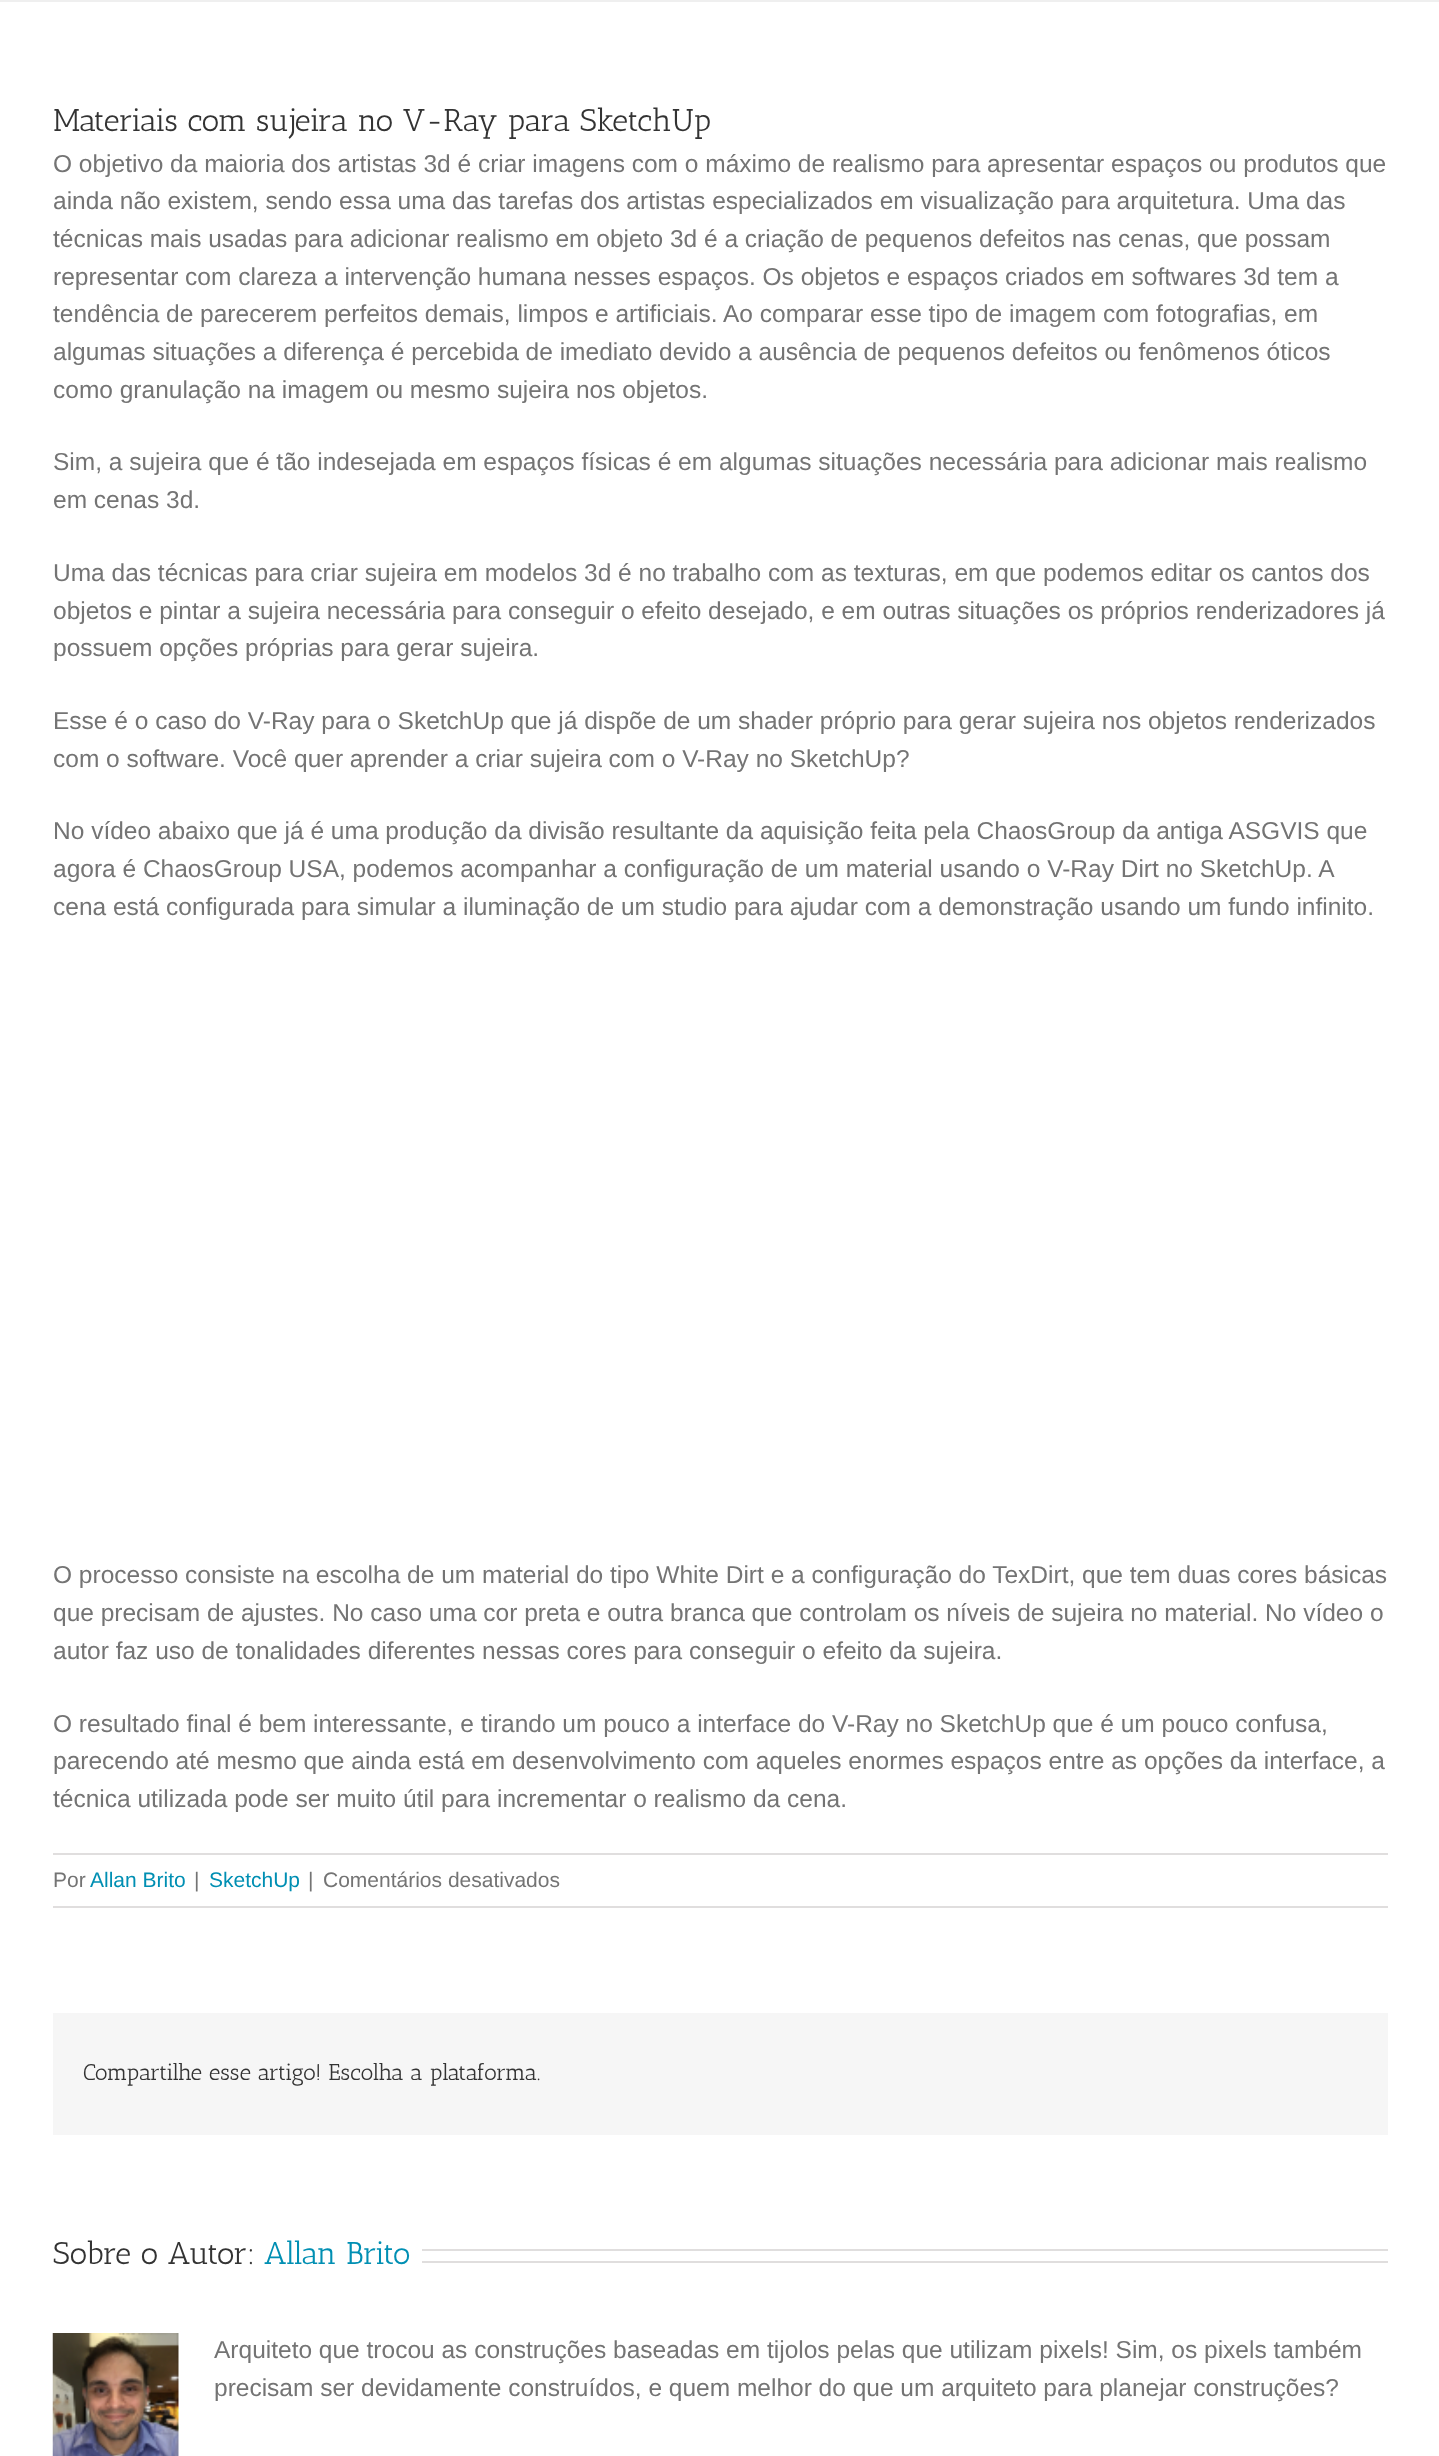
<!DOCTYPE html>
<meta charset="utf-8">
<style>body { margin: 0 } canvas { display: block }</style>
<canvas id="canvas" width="1439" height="2456"></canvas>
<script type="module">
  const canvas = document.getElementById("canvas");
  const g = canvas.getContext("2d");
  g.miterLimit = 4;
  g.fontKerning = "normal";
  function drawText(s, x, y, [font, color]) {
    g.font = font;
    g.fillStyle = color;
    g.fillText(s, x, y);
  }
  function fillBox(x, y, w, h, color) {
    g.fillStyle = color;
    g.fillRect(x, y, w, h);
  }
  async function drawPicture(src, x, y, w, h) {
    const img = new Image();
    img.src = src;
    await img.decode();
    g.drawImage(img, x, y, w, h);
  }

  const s1 = ["31.5px Antic Slab", "#333333"];
  const s2 = ["24.5px Liberation Sans", "#747474"];
  const s3 = ["21px Liberation Sans", "#747474"];
  const s4 = ["21px Liberation Sans", "#008FB3"];
  const s5 = ["22.75px Antic Slab", "#333333"];
  const s6 = ["31.5px Antic Slab", "#008FB3"];

  fillBox(0, 0, 1439, 2456, "#FFFFFF");
  fillBox(0, 0, 1439, 2, "#EFEFEF");
  drawText("Materiais com sujeira no V-Ray para SketchUp", 53, 131, s1);
  drawText("O objetivo da maioria dos artistas 3d é criar imagens com o máximo de realismo para apresentar espaços ou produtos que", 53, 172, s2);
  drawText("ainda não existem, sendo essa uma das tarefas dos artistas especializados em visualização para arquitetura. Uma das", 53, 209, s2);
  drawText("técnicas mais usadas para adicionar realismo em objeto 3d é a criação de pequenos defeitos nas cenas, que possam", 53, 247, s2);
  drawText("representar com clareza a intervenção humana nesses espaços. Os objetos e espaços criados em softwares 3d tem a", 53, 285, s2);
  drawText("tendência de parecerem perfeitos demais, limpos e artificiais. Ao comparar esse tipo de imagem com fotografias, em", 53, 322, s2);
  drawText("algumas situações a diferença é percebida de imediato devido a ausência de pequenos defeitos ou fenômenos óticos", 53, 360, s2);
  drawText("como granulação na imagem ou mesmo sujeira nos objetos.", 53, 398, s2);
  drawText("Sim, a sujeira que é tão indesejada em espaços físicas é em algumas situações necessária para adicionar mais realismo", 53, 470, s2);
  drawText("em cenas 3d.", 53, 508, s2);
  drawText("Uma das técnicas para criar sujeira em modelos 3d é no trabalho com as texturas, em que podemos editar os cantos dos", 53, 581, s2);
  drawText("objetos e pintar a sujeira necessária para conseguir o efeito desejado, e em outras situações os próprios renderizadores já", 53, 619, s2);
  drawText("possuem opções próprias para gerar sujeira.", 53, 656, s2);
  drawText("Esse é o caso do V-Ray para o SketchUp que já dispõe de um shader próprio para gerar sujeira nos objetos renderizados", 53, 729, s2);
  drawText("com o software. Você quer aprender a criar sujeira com o V-Ray no SketchUp?", 53, 767, s2);
  drawText("No vídeo abaixo que já é uma produção da divisão resultante da aquisição feita pela ChaosGroup da antiga ASGVIS que", 53, 839, s2);
  drawText("agora é ChaosGroup USA, podemos acompanhar a configuração de um material usando o V-Ray Dirt no SketchUp. A", 53, 877, s2);
  drawText("cena está configurada para simular a iluminação de um studio para ajudar com a demonstração usando um fundo infinito.", 53, 915, s2);
  drawText("O processo consiste na escolha de um material do tipo White Dirt e a configuração do TexDirt, que tem duas cores básicas", 53, 1583, s2);
  drawText("que precisam de ajustes. No caso uma cor preta e outra branca que controlam os níveis de sujeira no material. No vídeo o", 53, 1621, s2);
  drawText("autor faz uso de tonalidades diferentes nessas cores para conseguir o efeito da sujeira.", 53, 1659, s2);
  drawText("O resultado final é bem interessante, e tirando um pouco a interface do V-Ray no SketchUp que é um pouco confusa,", 53, 1732, s2);
  drawText("parecendo até mesmo que ainda está em desenvolvimento com aqueles enormes espaços entre as opções da interface, a", 53, 1769, s2);
  drawText("técnica utilizada pode ser muito útil para incrementar o realismo da cena.", 53, 1807, s2);
  fillBox(53, 1853, 1335, 2, "#E0DEDE");
  fillBox(53, 1906, 1335, 2, "#E0DEDE");
  drawText("Por", 53, 1887, s3);
  drawText("Allan Brito", 90, 1887, s4);
  drawText("|", 194, 1887, s3);
  drawText("SketchUp", 209, 1887, s4);
  drawText("|", 308, 1887, s3);
  drawText("Comentários desativados", 323, 1887, s3);
  fillBox(53, 2013, 1335, 122, "#F6F6F6");
  drawText("Compartilhe esse artigo! Escolha a plataforma.", 83, 2080, s5);
  drawText("Sobre o Autor:", 53, 2264, s1);
  drawText("Allan Brito", 264, 2264, s6);
  fillBox(422, 2249, 966, 2, "#E0DEDE");
  fillBox(422, 2261, 966, 2, "#E0DEDE");
  await drawPicture("pic1.png", 52, 2333, 127, 123);
  drawText("Arquiteto que trocou as construções baseadas em tijolos pelas que utilizam pixels! Sim, os pixels também", 214, 2358, s2);
  drawText("precisam ser devidamente construídos, e quem melhor do que um arquiteto para planejar construções?", 214, 2396, s2);
</script>
